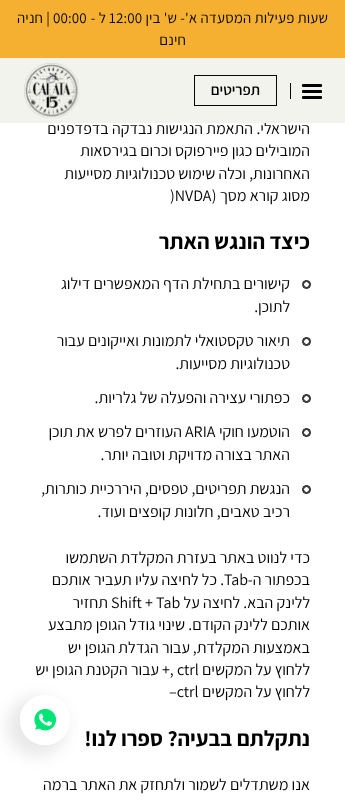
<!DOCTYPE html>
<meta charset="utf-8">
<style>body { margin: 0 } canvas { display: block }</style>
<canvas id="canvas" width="345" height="805"></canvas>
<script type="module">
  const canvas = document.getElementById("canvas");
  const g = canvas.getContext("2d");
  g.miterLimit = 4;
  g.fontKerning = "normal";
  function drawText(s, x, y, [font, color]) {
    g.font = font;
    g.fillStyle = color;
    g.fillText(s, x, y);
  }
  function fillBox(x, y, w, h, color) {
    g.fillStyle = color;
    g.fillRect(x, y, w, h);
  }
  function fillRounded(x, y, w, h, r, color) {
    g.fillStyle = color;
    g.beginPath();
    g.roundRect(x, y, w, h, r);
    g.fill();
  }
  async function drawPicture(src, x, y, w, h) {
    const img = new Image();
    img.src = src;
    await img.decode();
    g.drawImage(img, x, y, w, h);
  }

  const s1 = ["15px Assistant", "#070707"];
  const s2 = ["16px Assistant", "#000000"];
  const s3 = ["600 15px Assistant", "#000000"];
  const s4 = ["bold 22px Assistant", "#000000"];

  fillBox(0, 0, 345, 805, "#FFFFFF");
  fillBox(0, 0, 345, 58, "#F5B031");
  g.letterSpacing = "0.15px";
  g.direction = "rtl";
  drawText("שעות פעילות המסעדה א'- ש' בין", 328, 23, s1);
  g.direction = "ltr";
  drawText("12:00", 109, 23, s1);
  g.direction = "rtl";
  drawText("ל -", 106, 23, s1);
  g.direction = "ltr";
  drawText("00:00", 53, 23, s1);
  g.direction = "rtl";
  drawText("| חניה", 50, 23, s1);
  drawText("חינם", 186, 45, s1);
  g.letterSpacing = "0px";
  drawText("הישראלי.", 310, 134, s2);
  fillBox(0, 58, 345, 65, "#F3F3EE");
  fillRounded(302, 90, 20, 3, 1, "#000000");
  fillRounded(302, 84, 20, 3, 1, "#000000");
  fillRounded(302, 96, 20, 3, 1, "#000000");
  fillBox(290, 83, 1, 16, "#070707");
  g.strokeStyle = "#070707";
  g.strokeRect(194.5, 75.5, 82, 30);
  drawText("תפריטים", 260, 95, s3);
  await drawPicture("pic1.png", 24, 63, 55, 55);
  drawText("התאמת הנגישות נבדקה בדפדפנים", 253, 134, s2);
  drawText("המובילים כגון פיירפוקס וכרום בגירסאות", 310, 156, s2);
  drawText("האחרונות, וכלה שימוש טכנולוגיות מסייעות", 310, 179, s2);
  drawText("מסוג קורא מסך (", 310, 201, s2);
  g.direction = "ltr";
  drawText(")NVDA", 170, 201, s2);
  g.direction = "rtl";
  drawText("כיצד הונגש האתר", 310, 249, s4);
  g.beginPath();
  g.arc(306.5, 284.5, 3, 0, Math.PI * 2);
  g.strokeStyle = "#000000";
  g.stroke();
  g.beginPath();
  g.arc(306.5, 284.5, 4, 0, Math.PI * 2);
  g.stroke();
  drawText("קישורים בתחילת הדף המאפשרים דילוג", 290, 289, s2);
  drawText("לתוכן.", 290, 312, s2);
  g.beginPath();
  g.arc(306.5, 341.5, 3, 0, Math.PI * 2);
  g.stroke();
  g.beginPath();
  g.arc(306.5, 341.5, 4, 0, Math.PI * 2);
  g.stroke();
  drawText("תיאור טקסטואלי לתמונות ואייקונים עבור", 290, 346, s2);
  drawText("טכנולוגיות מסייעות.", 290, 369, s2);
  g.beginPath();
  g.arc(306.5, 398.5, 3, 0, Math.PI * 2);
  g.stroke();
  g.beginPath();
  g.arc(306.5, 398.5, 4, 0, Math.PI * 2);
  g.stroke();
  drawText("כפתורי עצירה והפעלה של גלריות.", 290, 403, s2);
  g.beginPath();
  g.arc(306.5, 432.5, 3, 0, Math.PI * 2);
  g.stroke();
  g.beginPath();
  g.arc(306.5, 432.5, 4, 0, Math.PI * 2);
  g.stroke();
  drawText("הוטמעו חוקי", 290, 437, s2);
  g.direction = "ltr";
  drawText("ARIA", 185, 437, s2);
  g.direction = "rtl";
  drawText("העוזרים לפרש את תוכן", 182, 437, s2);
  drawText("האתר בצורה מדויקת וטובה יותר.", 290, 460, s2);
  g.beginPath();
  g.arc(306.5, 489.5, 3, 0, Math.PI * 2);
  g.stroke();
  g.beginPath();
  g.arc(306.5, 489.5, 4, 0, Math.PI * 2);
  g.stroke();
  drawText("הנגשת תפריטים, טפסים, היררכיית כותרות,", 290, 494, s2);
  drawText("רכיב טאבים, חלונות קופצים ועוד.", 290, 517, s2);
  drawText("כדי לנווט באתר בעזרת המקלדת השתמשו", 310, 563, s2);
  drawText("בכפתור ה-", 310, 585, s2);
  g.direction = "ltr";
  drawText("Tab", 224, 585, s2);
  g.direction = "rtl";
  drawText(". כל לחיצה עליו תעביר אותכם", 224, 585, s2);
  drawText("ללינק הבא. לחיצה על", 310, 608, s2);
  g.direction = "ltr";
  drawText("Shift + Tab", 111, 608, s2);
  g.direction = "rtl";
  drawText("תחזיר", 108, 608, s2);
  drawText("אותכם ללינק הקודם.", 310, 630, s2);
  drawText("שינוי גודל הגופן מתבצע", 185, 630, s2);
  drawText("באמצעות המקלדת,", 310, 653, s2);
  drawText("עבור הגדלת הגופן יש", 190, 653, s2);
  drawText("ללחוץ על המקשים", 310, 675, s2);
  g.direction = "ltr";
  drawText("+, ctrl", 162, 675, s2);
  g.direction = "rtl";
  drawText("עבור הקטנת הגופן יש", 159, 675, s2);
  drawText("ללחוץ על המקשים", 310, 697, s2);
  g.direction = "ltr";
  drawText("–ctrl", 169, 697, s2);
  g.direction = "rtl";
  drawText("נתקלתם בבעיה? ספרו לנו!", 310, 746, s4);
  drawText("אנו משתדלים לשמור ולתחזק את האתר ברמה", 310, 790, s2);
  g.save();
  g.beginPath();
  g.moveTo(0, 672);
  g.lineTo(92, 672);
  g.lineTo(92, 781);
  g.lineTo(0, 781);
  g.closePath();
  g.moveTo(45, 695);
  g.bezierCurveTo(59, 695, 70, 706, 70, 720);
  g.bezierCurveTo(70, 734, 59, 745, 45, 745);
  g.bezierCurveTo(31, 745, 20, 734, 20, 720);
  g.bezierCurveTo(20, 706, 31, 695, 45, 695);
  g.closePath();
  g.clip("evenodd");
  g.fillStyle = "rgba(0, 0, 0, 0.09)";
  g.filter = "blur(8px)";
  g.beginPath();
  g.roundRect(7, 697, 60, 59, 29.5);
  g.fill();
  g.filter = "none";
  g.restore();
  await drawPicture("pic2.png", 20, 705, 36, 40);
</script>
